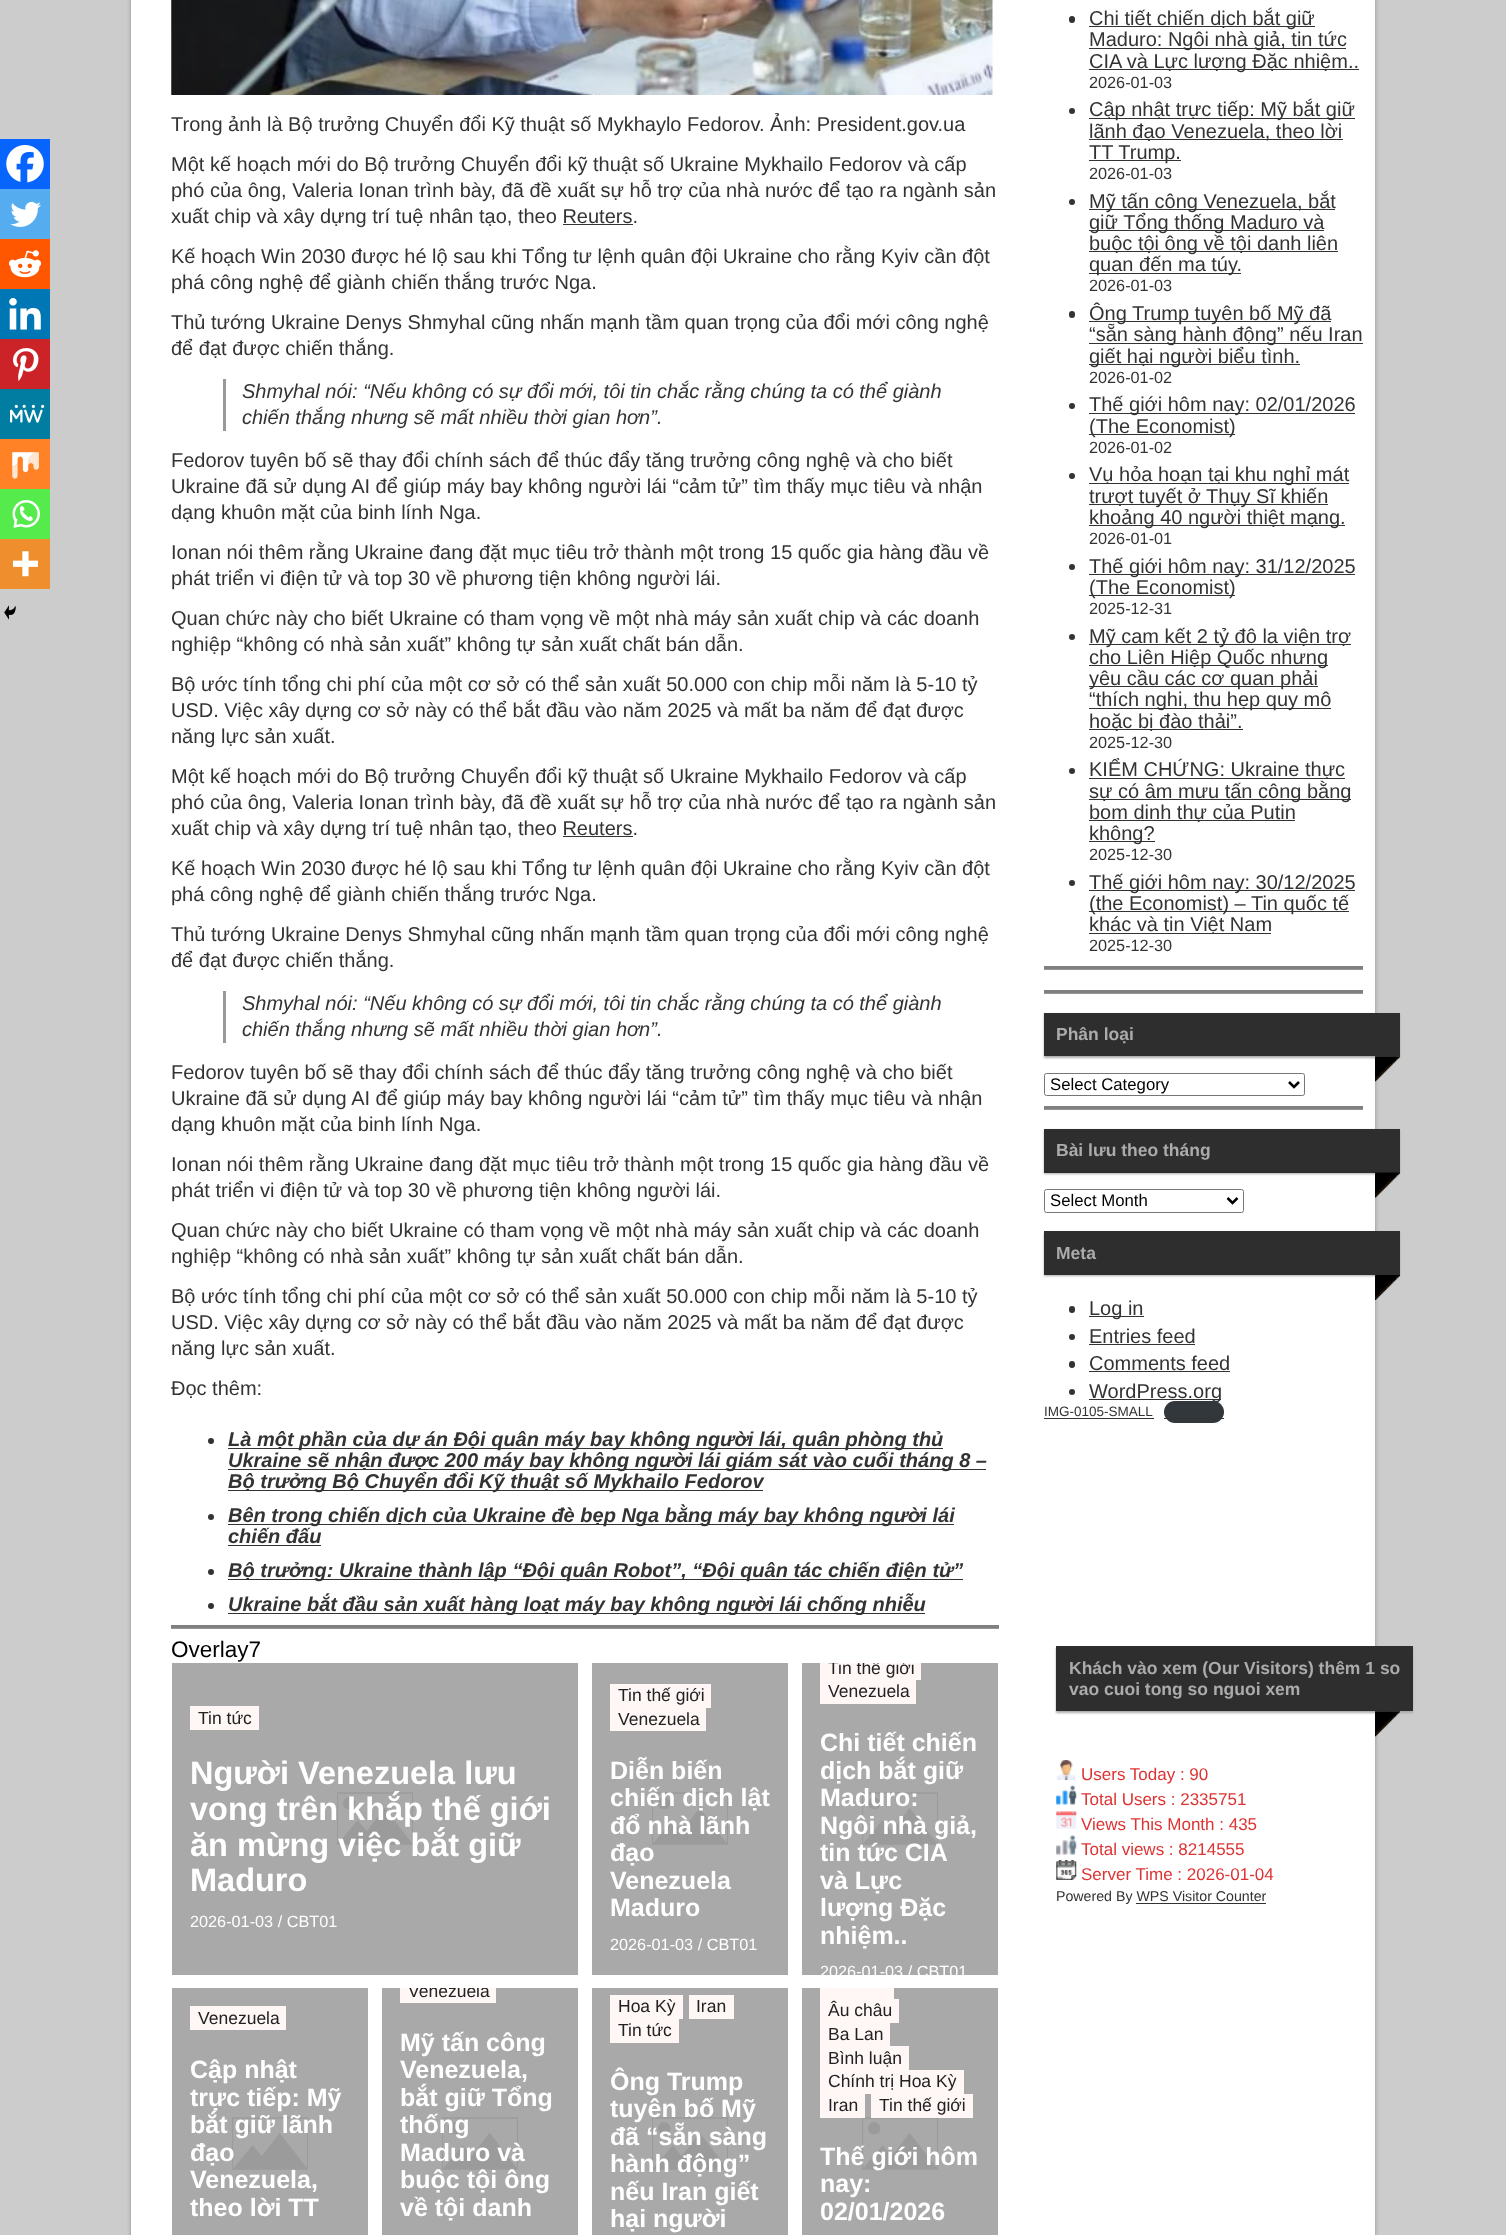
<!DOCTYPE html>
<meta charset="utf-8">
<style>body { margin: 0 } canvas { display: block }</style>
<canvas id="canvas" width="1506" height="2235"></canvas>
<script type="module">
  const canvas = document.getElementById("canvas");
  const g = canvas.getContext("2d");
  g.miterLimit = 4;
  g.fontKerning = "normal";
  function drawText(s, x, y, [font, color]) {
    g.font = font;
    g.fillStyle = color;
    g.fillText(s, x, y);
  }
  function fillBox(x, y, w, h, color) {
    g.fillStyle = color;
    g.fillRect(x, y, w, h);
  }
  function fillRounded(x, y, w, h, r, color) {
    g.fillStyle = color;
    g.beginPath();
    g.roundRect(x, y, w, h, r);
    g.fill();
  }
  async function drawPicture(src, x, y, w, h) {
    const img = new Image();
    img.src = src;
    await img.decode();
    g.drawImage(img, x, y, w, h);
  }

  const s1 = ["20px Liberation Sans", "#333333"];
  const s2 = ["italic 20px Liberation Sans", "#333333"];
  const s3 = ["italic bold 20px Liberation Sans", "#333333"];
  const s4 = ["22.5px Liberation Sans", "#000000"];
  const s5 = ["17.5px Liberation Sans", "#222222"];
  const s6 = ["bold 32.5px Liberation Sans", "#FFFFFF"];
  const s7 = ["16.25px Liberation Sans", "#FFFFFF"];
  const s8 = ["bold 25px Liberation Sans", "#FFFFFF"];
  const s9 = ["16.25px Liberation Sans", "#333333"];
  const s10 = ["bold 17.5px Liberation Sans", "#ABABAB"];
  const s11 = ["16.75px Liberation Sans", "#000000"];
  const s12 = ["13.5px Liberation Sans", "#333333"];
  const s13 = ["17px Liberation Sans", "#DD3333"];
  const s14 = ["14.2px Liberation Sans", "#333333"];

  fillBox(0, 0, 1506, 2235, "#CCCCCC");
  g.fillStyle = "rgba(0, 0, 0, 0.3)";
  g.filter = "blur(2px)";
  g.beginPath();
  g.roundRect(131, -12, 1244, 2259, 6);
  g.fill();
  g.filter = "none";
  fillBox(131, 0, 1244, 2235, "#FFFFFF");
  await drawPicture("pic1.png", 171, 0, 822, 95);
  drawText("Trong ảnh là Bộ trưởng Chuyển đổi Kỹ thuật số Mykhaylo Fedorov. Ảnh: President.gov.ua", 171, 131, s1);
  fillBox(0, 139, 50, 50, "#0765FE");
  await drawPicture("pic2.png", 6, 145, 38, 38);
  fillBox(0, 189, 50, 50, "#55ACEE");
  await drawPicture("pic3.png", 10, 201, 31, 26);
  fillBox(0, 239, 50, 50, "#FF5700");
  await drawPicture("pic4.png", 8, 250, 34, 28);
  fillBox(0, 289, 50, 50, "#0077B5");
  await drawPicture("pic5.png", 9, 298, 32, 32);
  fillBox(0, 339, 50, 50, "#CC2329");
  await drawPicture("pic6.png", 13, 348, 26, 33);
  fillBox(0, 389, 50, 50, "#007DA1");
  await drawPicture("pic7.png", 10, 404, 35, 19);
  fillBox(0, 439, 50, 50, "#FF8226");
  await drawPicture("pic8.png", 12, 452, 27, 27);
  fillBox(0, 489, 50, 50, "#55EB4C");
  await drawPicture("pic9.png", 12, 500, 28, 28);
  fillBox(0, 539, 50, 50, "#EE8E2D");
  await drawPicture("pic10.png", 12, 551, 26, 26);
  await drawPicture("pic11.png", 4, 605, 12, 15);
  drawText("Một kế hoạch mới do Bộ trưởng Chuyển đổi kỹ thuật số Ukraine Mykhailo Fedorov và cấp", 171, 171, s1);
  drawText("phó của ông, Valeria Ionan trình bày, đã đề xuất sự hỗ trợ của nhà nước để tạo ra ngành sản", 171, 197, s1);
  drawText("xuất chip và xây dựng trí tuệ nhân tạo, theo Reuters.", 171, 223, s1);
  fillBox(563, 224, 70, 1, "#333333");
  drawText("Kế hoạch Win 2030 được hé lộ sau khi Tổng tư lệnh quân đội Ukraine cho rằng Kyiv cần đột", 171, 263, s1);
  drawText("phá công nghệ để giành chiến thắng trước Nga.", 171, 289, s1);
  drawText("Thủ tướng Ukraine Denys Shmyhal cũng nhấn mạnh tầm quan trọng của đổi mới công nghệ", 171, 329, s1);
  drawText("để đạt được chiến thắng.", 171, 355, s1);
  fillBox(223, 379, 3, 52, "#999999");
  drawText("Shmyhal nói: “Nếu không có sự đổi mới, tôi tin chắc rằng chúng ta có thể giành", 242, 398, s2);
  drawText("chiến thắng nhưng sẽ mất nhiều thời gian hơn”.", 242, 424, s2);
  drawText("Fedorov tuyên bố sẽ thay đổi chính sách để thúc đẩy tăng trưởng công nghệ và cho biết", 171, 467, s1);
  drawText("Ukraine đã sử dụng AI để giúp máy bay không người lái “cảm tử” tìm thấy mục tiêu và nhận", 171, 493, s1);
  drawText("dạng khuôn mặt của binh lính Nga.", 171, 519, s1);
  drawText("Ionan nói thêm rằng Ukraine đang đặt mục tiêu trở thành một trong 15 quốc gia hàng đầu về", 171, 559, s1);
  drawText("phát triển vi điện tử và top 30 về phương tiện không người lái.", 171, 585, s1);
  drawText("Quan chức này cho biết Ukraine có tham vọng về một nhà máy sản xuất chip và các doanh", 171, 625, s1);
  drawText("nghiệp “không có nhà sản xuất” không tự sản xuất chất bán dẫn.", 171, 651, s1);
  drawText("Bộ ước tính tổng chi phí của một cơ sở có thể sản xuất 50.000 con chip mỗi năm là 5-10 tỷ", 171, 691, s1);
  drawText("USD. Việc xây dựng cơ sở này có thể bắt đầu vào năm 2025 và mất ba năm để đạt được", 171, 717, s1);
  drawText("năng lực sản xuất.", 171, 743, s1);
  drawText("Một kế hoạch mới do Bộ trưởng Chuyển đổi kỹ thuật số Ukraine Mykhailo Fedorov và cấp", 171, 783, s1);
  drawText("phó của ông, Valeria Ionan trình bày, đã đề xuất sự hỗ trợ của nhà nước để tạo ra ngành sản", 171, 809, s1);
  drawText("xuất chip và xây dựng trí tuệ nhân tạo, theo Reuters.", 171, 835, s1);
  fillBox(563, 836, 70, 1, "#333333");
  drawText("Kế hoạch Win 2030 được hé lộ sau khi Tổng tư lệnh quân đội Ukraine cho rằng Kyiv cần đột", 171, 875, s1);
  drawText("phá công nghệ để giành chiến thắng trước Nga.", 171, 901, s1);
  drawText("Thủ tướng Ukraine Denys Shmyhal cũng nhấn mạnh tầm quan trọng của đổi mới công nghệ", 171, 941, s1);
  drawText("để đạt được chiến thắng.", 171, 967, s1);
  fillBox(223, 991, 3, 52, "#999999");
  drawText("Shmyhal nói: “Nếu không có sự đổi mới, tôi tin chắc rằng chúng ta có thể giành", 242, 1010, s2);
  drawText("chiến thắng nhưng sẽ mất nhiều thời gian hơn”.", 242, 1036, s2);
  drawText("Fedorov tuyên bố sẽ thay đổi chính sách để thúc đẩy tăng trưởng công nghệ và cho biết", 171, 1079, s1);
  drawText("Ukraine đã sử dụng AI để giúp máy bay không người lái “cảm tử” tìm thấy mục tiêu và nhận", 171, 1105, s1);
  drawText("dạng khuôn mặt của binh lính Nga.", 171, 1131, s1);
  drawText("Ionan nói thêm rằng Ukraine đang đặt mục tiêu trở thành một trong 15 quốc gia hàng đầu về", 171, 1171, s1);
  drawText("phát triển vi điện tử và top 30 về phương tiện không người lái.", 171, 1197, s1);
  drawText("Quan chức này cho biết Ukraine có tham vọng về một nhà máy sản xuất chip và các doanh", 171, 1237, s1);
  drawText("nghiệp “không có nhà sản xuất” không tự sản xuất chất bán dẫn.", 171, 1263, s1);
  drawText("Bộ ước tính tổng chi phí của một cơ sở có thể sản xuất 50.000 con chip mỗi năm là 5-10 tỷ", 171, 1303, s1);
  drawText("USD. Việc xây dựng cơ sở này có thể bắt đầu vào năm 2025 và mất ba năm để đạt được", 171, 1329, s1);
  drawText("năng lực sản xuất.", 171, 1355, s1);
  drawText("Đọc thêm:", 171, 1395, s1);
  g.beginPath();
  g.arc(211, 1441, 3, 0, Math.PI * 2);
  g.fill();
  fillBox(228, 1448, 715, 1, "#333333");
  drawText("Là một phần của dự án Đội quân máy bay không người lái, quân phòng thủ", 228, 1446, s3);
  fillBox(228, 1469, 758, 1, "#333333");
  drawText("Ukraine sẽ nhận được 200 máy bay không người lái giám sát vào cuối tháng 8 –", 228, 1467, s3);
  fillBox(228, 1490, 535, 1, "#333333");
  drawText("Bộ trưởng Bộ Chuyển đổi Kỹ thuật số Mykhailo Fedorov", 228, 1488, s3);
  g.beginPath();
  g.arc(211, 1517, 3, 0, Math.PI * 2);
  g.fill();
  fillBox(228, 1524, 726, 1, "#333333");
  drawText("Bên trong chiến dịch của Ukraine đè bẹp Nga bằng máy bay không người lái", 228, 1522, s3);
  drawText("chiến đấu", 228, 1543, s3);
  fillBox(228, 1545, 93, 1, "#333333");
  g.beginPath();
  g.arc(211, 1572, 3, 0, Math.PI * 2);
  g.fill();
  fillBox(228, 1579, 735, 1, "#333333");
  drawText("Bộ trưởng: Ukraine thành lập “Đội quân Robot”, “Đội quân tác chiến điện tử”", 228, 1577, s3);
  g.beginPath();
  g.arc(211, 1606, 3, 0, Math.PI * 2);
  g.fill();
  fillBox(228, 1613, 697, 1, "#333333");
  g.save();
  g.beginPath();
  g.rect(171, 1416, 828, 199);
  g.clip();
  drawText("Ukraine bắt đầu sản xuất hàng loạt máy bay không người lái chống nhiễu", 228, 1611, s3);
  g.restore();
  fillBox(171, 1628, 828, 1, "#969696");
  fillBox(171, 1625, 828, 3, "#808080");
  drawText("Overlay7", 171, 1657, s4);
  await drawPicture("pic12.png", 172, 1663, 406, 312);
  fillBox(190, 1706, 69, 24, "#FFF6F6");
  drawText("Tin tức", 198, 1724, s5);
  drawText("Người Venezuela lưu", 190, 1784, s6);
  drawText("vong trên khắp thế giới", 190, 1820, s6);
  drawText("ăn mừng việc bắt giữ", 190, 1856, s6);
  drawText("Maduro", 190, 1891, s6);
  drawText("2026-01-03 / CBT01", 190, 1927, s7);
  await drawPicture("pic13.png", 592, 1663, 196, 312);
  fillBox(610, 1684, 101, 24, "#FFF6F6");
  drawText("Tin thế giới", 618, 1701, s5);
  fillBox(610, 1708, 96, 23, "#FFF6F6");
  drawText("Venezuela", 618, 1725, s5);
  drawText("Diễn biến", 610, 1779, s8);
  drawText("chiến dịch lật", 610, 1806, s8);
  drawText("đổ nhà lãnh", 610, 1834, s8);
  drawText("đạo", 610, 1861, s8);
  drawText("Venezuela", 610, 1889, s8);
  drawText("Maduro", 610, 1916, s8);
  drawText("2026-01-03 / CBT01", 610, 1950, s7);
  await drawPicture("pic13.png", 802, 1663, 196, 312);
  fillBox(820, 1663, 101, 17, "#FFF6F6");
  g.save();
  g.beginPath();
  g.rect(801, 1663, 198, 312);
  g.clip();
  drawText("Tin thế giới", 828, 1674, s5);
  g.restore();
  fillBox(820, 1680, 96, 24, "#FFF6F6");
  drawText("Venezuela", 828, 1697, s5);
  drawText("Chi tiết chiến", 820, 1751, s8);
  drawText("dịch bắt giữ", 820, 1779, s8);
  drawText("Maduro:", 820, 1806, s8);
  drawText("Ngôi nhà giả,", 820, 1834, s8);
  drawText("tin tức CIA", 820, 1861, s8);
  drawText("và Lực", 820, 1889, s8);
  drawText("lượng Đặc", 820, 1916, s8);
  drawText("nhiệm..", 820, 1944, s8);
  g.save();
  g.beginPath();
  g.rect(801, 1663, 198, 312);
  g.clip();
  drawText("2026-01-03 / CBT01", 820, 1977, s7);
  g.restore();
  await drawPicture("pic14.png", 172, 1988, 196, 247);
  fillBox(190, 2006, 96, 24, "#FFF6F6");
  drawText("Venezuela", 198, 2024, s5);
  drawText("Cập nhật", 190, 2078, s8);
  drawText("trực tiếp: Mỹ", 190, 2106, s8);
  drawText("bắt giữ lãnh", 190, 2133, s8);
  drawText("đạo", 190, 2161, s8);
  drawText("Venezuela,", 190, 2188, s8);
  drawText("theo lời TT", 190, 2216, s8);
  await drawPicture("pic14.png", 382, 1988, 196, 247);
  fillBox(400, 1988, 96, 15, "#FFF6F6");
  g.save();
  g.beginPath();
  g.rect(381, 1988, 198, 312);
  g.clip();
  drawText("Venezuela", 408, 1997, s5);
  g.restore();
  drawText("Mỹ tấn công", 400, 2051, s8);
  drawText("Venezuela,", 400, 2078, s8);
  drawText("bắt giữ Tổng", 400, 2106, s8);
  drawText("thống", 400, 2133, s8);
  drawText("Maduro và", 400, 2161, s8);
  drawText("buộc tội ông", 400, 2188, s8);
  drawText("về tội danh", 400, 2216, s8);
  await drawPicture("pic14.png", 592, 1988, 196, 247);
  fillBox(610, 1995, 73, 24, "#FFF6F6");
  drawText("Hoa Kỳ", 618, 2012, s5);
  fillBox(689, 1995, 45, 24, "#FFF6F6");
  drawText("Iran", 696, 2012, s5);
  fillBox(610, 2019, 69, 24, "#FFF6F6");
  drawText("Tin tức", 618, 2036, s5);
  drawText("Ông Trump", 610, 2090, s8);
  drawText("tuyên bố Mỹ", 610, 2117, s8);
  drawText("đã “sẵn sàng", 610, 2145, s8);
  drawText("hành động”", 610, 2172, s8);
  drawText("nếu Iran giết", 610, 2200, s8);
  drawText("hại người", 610, 2227, s8);
  await drawPicture("pic14.png", 802, 1988, 196, 247);
  fillBox(820, 1988, 74, 11, "#FFF6F6");
  fillBox(820, 1999, 79, 24, "#FFF6F6");
  drawText("Âu châu", 828, 2016, s5);
  fillBox(820, 2023, 70, 23, "#FFF6F6");
  drawText("Ba Lan", 828, 2040, s5);
  fillBox(820, 2046, 89, 24, "#FFF6F6");
  drawText("Bình luận", 828, 2064, s5);
  fillBox(820, 2070, 144, 24, "#FFF6F6");
  drawText("Chính trị Hoa Kỳ", 828, 2087, s5);
  fillBox(820, 2094, 45, 24, "#FFF6F6");
  drawText("Iran", 828, 2111, s5);
  fillBox(871, 2094, 102, 24, "#FFF6F6");
  drawText("Tin thế giới", 879, 2111, s5);
  drawText("Thế giới hôm", 820, 2165, s8);
  drawText("nay:", 820, 2192, s8);
  drawText("02/01/2026", 820, 2220, s8);
  fillRounded(1069, 16, 6, 7, 3, "#333333");
  fillBox(1089, 26, 226, 1, "#333333");
  drawText("Chi tiết chiến dịch bắt giữ", 1089, 25, s1);
  fillBox(1089, 48, 257, 1, "#333333");
  drawText("Maduro: Ngôi nhà giả, tin tức", 1089, 46, s1);
  fillBox(1089, 69, 270, 1, "#333333");
  drawText("CIA và Lực lượng Đặc nhiệm..", 1089, 68, s1);
  drawText("2026-01-03", 1089, 88, s9);
  g.beginPath();
  g.arc(1072, 111, 3, 0, Math.PI * 2);
  g.fill();
  fillBox(1089, 118, 266, 1, "#333333");
  drawText("Cập nhật trực tiếp: Mỹ bắt giữ", 1089, 116, s1);
  fillBox(1089, 139, 254, 1, "#333333");
  drawText("lãnh đạo Venezuela, theo lời", 1089, 138, s1);
  fillBox(1089, 160, 92, 1, "#333333");
  drawText("TT Trump.", 1089, 159, s1);
  drawText("2026-01-03", 1089, 179, s9);
  g.beginPath();
  g.arc(1072, 202, 3, 0, Math.PI * 2);
  g.fill();
  fillBox(1089, 209, 246, 1, "#333333");
  drawText("Mỹ tấn công Venezuela, bắt", 1089, 208, s1);
  fillBox(1089, 230, 235, 1, "#333333");
  drawText("giữ Tổng thống Maduro và", 1089, 229, s1);
  fillBox(1089, 251, 249, 1, "#333333");
  drawText("buộc tội ông về tội danh liên", 1089, 250, s1);
  fillBox(1089, 273, 152, 1, "#333333");
  drawText("quan đến ma túy.", 1089, 271, s1);
  drawText("2026-01-03", 1089, 291, s9);
  fillRounded(1069, 311, 6, 7, 3, "#333333");
  fillBox(1089, 321, 242, 1, "#333333");
  drawText("Ông Trump tuyên bố Mỹ đã", 1089, 320, s1);
  fillBox(1089, 343, 274, 1, "#333333");
  drawText("“sẵn sàng hành động” nếu Iran", 1089, 341, s1);
  fillBox(1089, 364, 211, 1, "#333333");
  drawText("giết hại người biểu tình.", 1089, 363, s1);
  drawText("2026-01-02", 1089, 383, s9);
  g.beginPath();
  g.arc(1072, 406, 3, 0, Math.PI * 2);
  g.fill();
  fillBox(1089, 413, 266, 1, "#333333");
  drawText("Thế giới hôm nay: 02/01/2026", 1089, 411, s1);
  fillBox(1089, 434, 146, 1, "#333333");
  drawText("(The Economist)", 1089, 433, s1);
  drawText("2026-01-02", 1089, 453, s9);
  g.beginPath();
  g.arc(1072, 476, 3, 0, Math.PI * 2);
  g.fill();
  fillBox(1089, 483, 260, 1, "#333333");
  drawText("Vụ hỏa hoạn tại khu nghỉ mát", 1089, 481, s1);
  fillBox(1089, 504, 239, 1, "#333333");
  drawText("trượt tuyết ở Thụy Sĩ khiến", 1089, 503, s1);
  fillBox(1089, 525, 256, 1, "#333333");
  drawText("khoảng 40 người thiệt mạng.", 1089, 524, s1);
  drawText("2026-01-01", 1089, 544, s9);
  g.beginPath();
  g.arc(1072, 567, 3, 0, Math.PI * 2);
  g.fill();
  fillBox(1089, 574, 266, 1, "#333333");
  drawText("Thế giới hôm nay: 31/12/2025", 1089, 573, s1);
  fillBox(1089, 595, 146, 1, "#333333");
  drawText("(The Economist)", 1089, 594, s1);
  drawText("2025-12-31", 1089, 614, s9);
  g.beginPath();
  g.arc(1072, 637, 3, 0, Math.PI * 2);
  g.fill();
  fillBox(1089, 644, 262, 1, "#333333");
  drawText("Mỹ cam kết 2 tỷ đô la viện trợ", 1089, 643, s1);
  fillBox(1089, 665, 239, 1, "#333333");
  drawText("cho Liên Hiệp Quốc nhưng", 1089, 664, s1);
  fillBox(1089, 686, 229, 1, "#333333");
  drawText("yêu cầu các cơ quan phải", 1089, 685, s1);
  fillBox(1089, 708, 242, 1, "#333333");
  drawText("“thích nghi, thu hẹp quy mô", 1089, 706, s1);
  fillBox(1089, 729, 154, 1, "#333333");
  drawText("hoặc bị đào thải”.", 1089, 728, s1);
  drawText("2025-12-30", 1089, 748, s9);
  g.beginPath();
  g.arc(1072, 771, 3, 0, Math.PI * 2);
  g.fill();
  fillBox(1089, 778, 256, 1, "#333333");
  drawText("KIỂM CHỨNG: Ukraine thực", 1089, 776, s1);
  fillBox(1089, 799, 262, 1, "#333333");
  drawText("sự có âm mưu tấn công bằng", 1089, 798, s1);
  fillBox(1089, 820, 206, 1, "#333333");
  drawText("bom dinh thự của Putin", 1089, 819, s1);
  fillBox(1089, 841, 66, 1, "#333333");
  drawText("không?", 1089, 840, s1);
  drawText("2025-12-30", 1089, 860, s9);
  g.beginPath();
  g.arc(1072, 883, 3, 0, Math.PI * 2);
  g.fill();
  fillBox(1089, 890, 266, 1, "#333333");
  drawText("Thế giới hôm nay: 30/12/2025", 1089, 889, s1);
  fillBox(1089, 911, 260, 1, "#333333");
  drawText("(the Economist) – Tin quốc tế", 1089, 910, s1);
  fillBox(1089, 933, 182, 1, "#333333");
  drawText("khác và tin Việt Nam", 1089, 931, s1);
  drawText("2025-12-30", 1089, 951, s9);
  fillBox(1044, 969, 319, 1, "#969696");
  fillBox(1044, 966, 319, 3, "#808080");
  fillBox(1044, 993, 319, 1, "#969696");
  fillBox(1044, 990, 319, 3, "#808080");
  g.fillStyle = "#AAAAAA";
  g.filter = "blur(1px)";
  g.beginPath();
  g.rect(1044, 1014, 356, 44);
  g.fill();
  g.filter = "none";
  fillBox(1044, 1013, 356, 43, "#2E2E2E");
  drawText("Phân loại", 1056, 1040, s10);
  await drawPicture("pic15.png", 1375, 1056, 25, 26);
  g.beginPath();
  g.roundRect(1044.5, 1073.5, 260, 22, 2);
  g.strokeStyle = "#767676";
  g.stroke();
  g.beginPath();
  g.moveTo(1289, 1082);
  g.lineTo(1294, 1087);
  g.lineTo(1299, 1082);
  g.strokeStyle = "#000000";
  g.lineWidth = 2.5;
  g.stroke();
  drawText("Select Category", 1050, 1090, s11);
  fillBox(1044, 1109, 319, 1, "#969696");
  fillBox(1044, 1106, 319, 3, "#808080");
  g.fillStyle = "#AAAAAA";
  g.filter = "blur(1px)";
  g.beginPath();
  g.rect(1044, 1130, 356, 44);
  g.fill();
  g.filter = "none";
  fillBox(1044, 1129, 356, 44, "#2E2E2E");
  drawText("Bài lưu theo tháng", 1056, 1156, s10);
  await drawPicture("pic16.png", 1375, 1172, 25, 26);
  g.beginPath();
  g.roundRect(1044.5, 1189.5, 199, 23, 2);
  g.strokeStyle = "#767676";
  g.lineWidth = 1;
  g.stroke();
  g.beginPath();
  g.moveTo(1227.5, 1198);
  g.lineTo(1232.5, 1203);
  g.lineTo(1237.5, 1198);
  g.strokeStyle = "#000000";
  g.lineWidth = 2.5;
  g.stroke();
  drawText("Select Month", 1050, 1206, s11);
  g.fillStyle = "#AAAAAA";
  g.filter = "blur(1px)";
  g.beginPath();
  g.rect(1044, 1233, 356, 43);
  g.fill();
  g.filter = "none";
  fillBox(1044, 1231, 356, 44, "#2E2E2E");
  drawText("Meta", 1056, 1259, s10);
  await drawPicture("pic17.png", 1375, 1275, 25, 25);
  fillRounded(1069, 1306, 6, 7, 3, "#333333");
  fillBox(1089, 1316, 55, 1, "#333333");
  drawText("Log in", 1089, 1315, s1);
  g.beginPath();
  g.arc(1072, 1337, 3, 0, Math.PI * 2);
  g.fill();
  drawText("Entries feed", 1089, 1343, s1);
  fillBox(1089, 1344, 106, 1, "#333333");
  fillRounded(1069, 1361, 6, 7, 3, "#333333");
  drawText("Comments feed", 1089, 1370, s1);
  fillBox(1089, 1371, 141, 1, "#333333");
  g.beginPath();
  g.arc(1072, 1392, 3, 0, Math.PI * 2);
  g.fill();
  fillBox(1089, 1399, 132, 1, "#333333");
  drawText("WordPress.org", 1089, 1398, s1);
  drawText("IMG-0105-SMALL", 1044, 1416, s12);
  fillBox(1044, 1418, 110, 1, "#333333");
  fillRounded(1164, 1401, 60, 22, 11, "#32373C");
  fillBox(1164, 1418, 60, 1, "#333333");
  g.fillStyle = "#AAAAAA";
  g.filter = "blur(1px)";
  g.beginPath();
  g.rect(1056, 1648, 357, 65);
  g.fill();
  g.filter = "none";
  fillBox(1056, 1646, 357, 65, "#2E2E2E");
  drawText("Khách vào xem (Our Visitors) thêm 1 so", 1069, 1674, s10);
  drawText("vao cuoi tong so nguoi xem", 1069, 1695, s10);
  await drawPicture("pic18.png", 1375, 1711, 25, 26);
  await drawPicture("pic19.png", 1056, 1760, 20, 20);
  drawText("Users Today : 90", 1081, 1780, s13);
  await drawPicture("pic20.png", 1056, 1785, 21, 20);
  drawText("Total Users : 2335751", 1081, 1805, s13);
  await drawPicture("pic21.png", 1056, 1811, 21, 18);
  drawText("Views This Month : 435", 1081, 1830, s13);
  await drawPicture("pic22.png", 1056, 1835, 21, 20);
  drawText("Total views : 8214555", 1081, 1855, s13);
  await drawPicture("pic23.png", 1056, 1860, 21, 20);
  drawText("Server Time : 2026-01-04", 1081, 1880, s13);
  drawText("Powered By WPS Visitor Counter", 1056, 1901, s14);
  fillBox(1136, 1903, 130, 1, "#333333");
</script>
